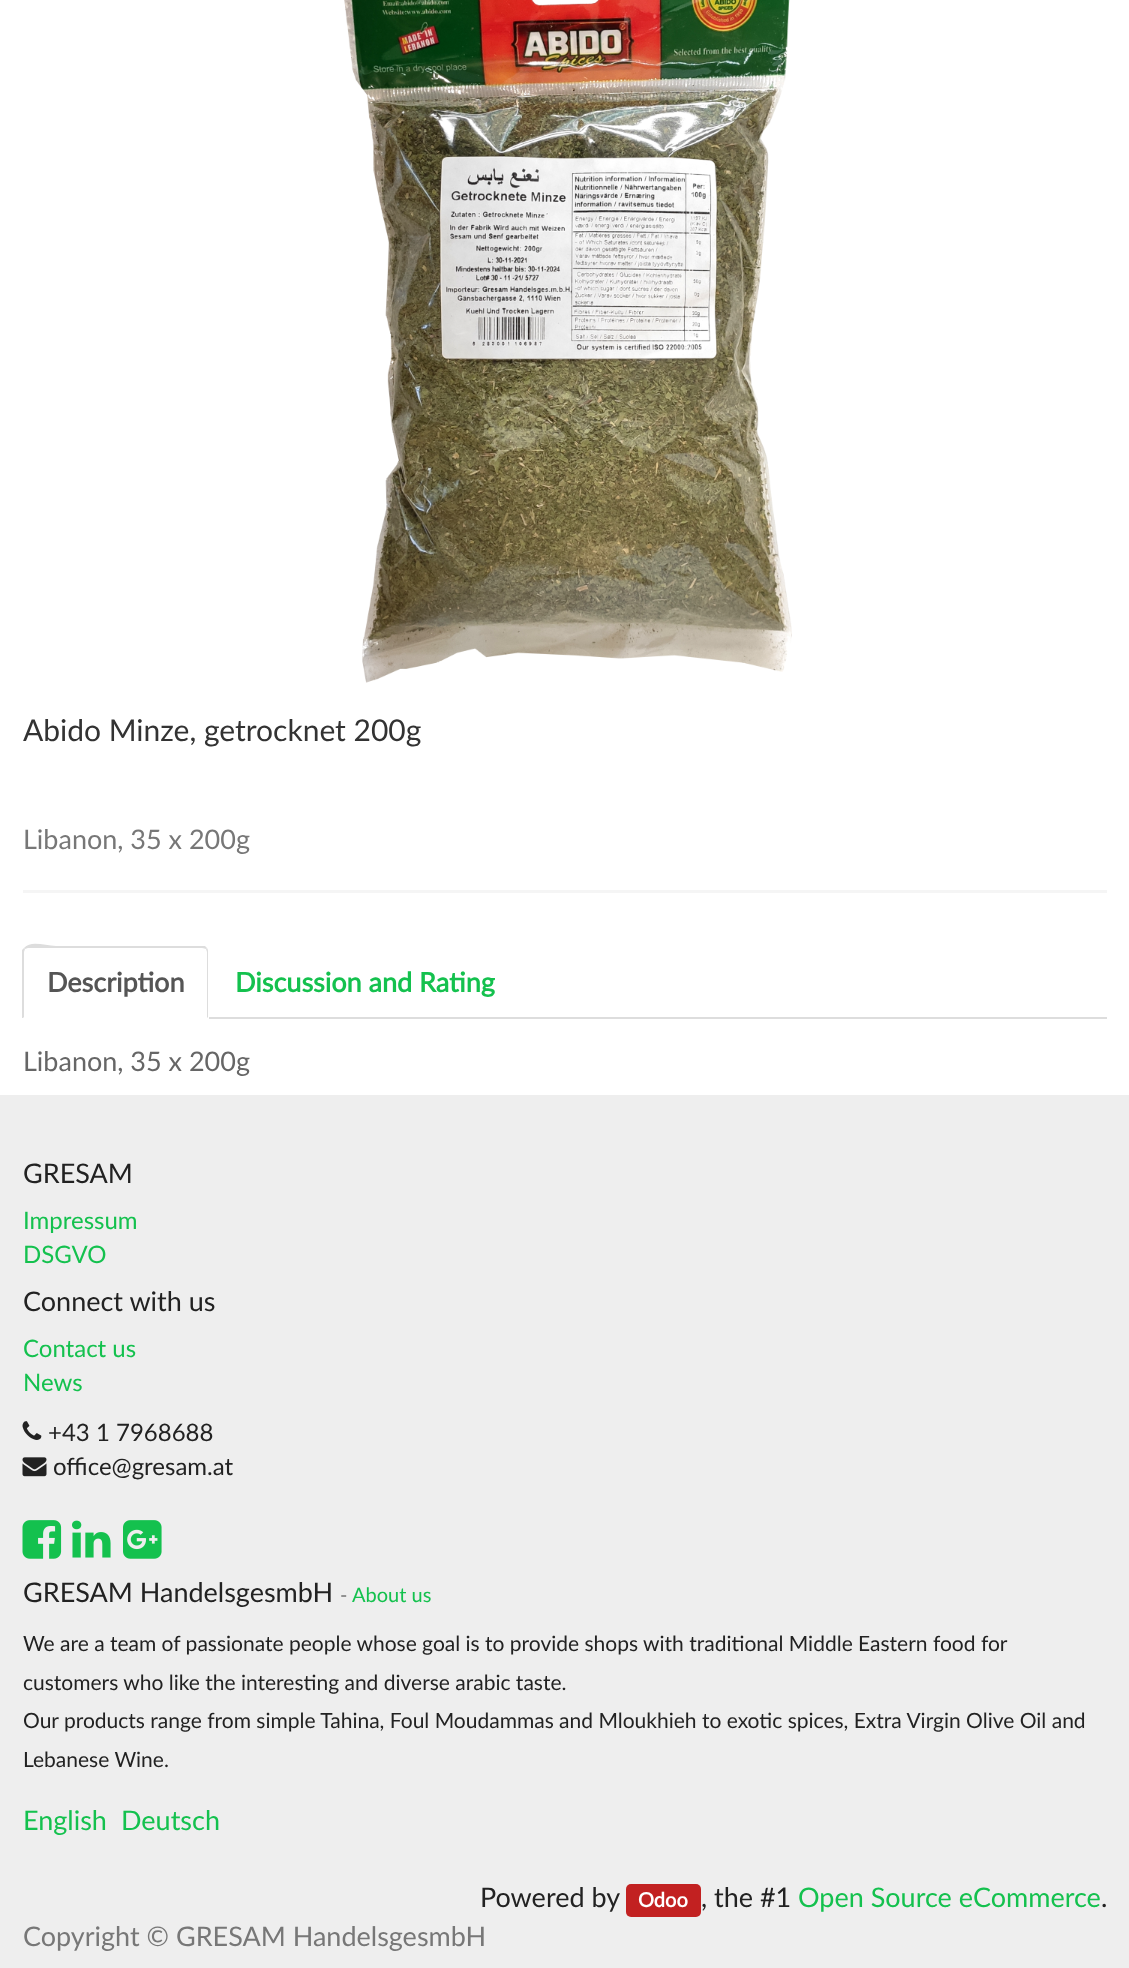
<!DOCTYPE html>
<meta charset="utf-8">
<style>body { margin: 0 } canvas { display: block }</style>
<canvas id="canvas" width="1129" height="1968"></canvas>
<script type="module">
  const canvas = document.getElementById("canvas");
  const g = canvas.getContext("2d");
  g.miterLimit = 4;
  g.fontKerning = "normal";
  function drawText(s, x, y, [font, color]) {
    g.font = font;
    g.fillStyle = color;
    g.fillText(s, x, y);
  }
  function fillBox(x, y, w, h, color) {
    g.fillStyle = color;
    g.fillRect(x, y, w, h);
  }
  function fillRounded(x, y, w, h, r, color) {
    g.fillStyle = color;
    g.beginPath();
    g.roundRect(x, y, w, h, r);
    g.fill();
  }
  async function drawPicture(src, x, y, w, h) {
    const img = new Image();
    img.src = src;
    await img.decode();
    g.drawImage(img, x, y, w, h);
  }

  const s1 = ["30px Lato", "#333333"];
  const s2 = ["27px Lato", "#777777"];
  const s3 = ["bold 27px Lato", "#555555"];
  const s4 = ["bold 27px Lato", "#14C14E"];
  const s5 = ["27px Lato", "#666666"];
  const s6 = ["27px Lato", "#222222"];
  const s7 = ["24px Lato", "#14C14E"];
  const s8 = ["24px Lato", "#222222"];
  const s9 = ["20px Lato", "#777777"];
  const s10 = ["20px Lato", "#14C14E"];
  const s11 = ["21px Lato", "#222222"];
  const s12 = ["27px Lato", "#14C14E"];
  const s13 = ["bold 20px Lato", "#FFFFFF"];

  fillBox(0, 0, 1129, 1968, "#FFFFFF");
  await drawPicture("pic1.png", 344, 0, 448, 683);
  drawText("Abido Minze, getrocknet 200g", 23, 741, s1);
  drawText("Libanon, 35 x 200g", 23, 849, s2);
  fillBox(23, 890, 1084, 3, "#F5F5F5");
  fillBox(209, 1017, 898, 2, "#DDDDDD");
  g.beginPath();
  g.moveTo(28, 948);
  g.lineTo(25, 949);
  g.lineTo(24, 948);
  g.bezierCurveTo(31, 940, 45, 946, 56, 946);
  g.lineTo(205, 946);
  g.lineTo(207, 948);
  g.lineTo(206, 949);
  g.bezierCurveTo(205, 949, 204, 948, 202, 948);
  g.closePath();
  g.fill();
  g.beginPath();
  g.moveTo(207, 948);
  g.bezierCurveTo(208, 949, 208, 951, 208, 952);
  g.lineTo(208, 1018);
  g.lineTo(207, 1017);
  g.lineTo(207, 952);
  g.lineTo(206, 949);
  g.closePath();
  g.fill();
  g.beginPath();
  g.moveTo(22, 950);
  g.lineTo(24, 948);
  g.lineTo(25, 949);
  g.lineTo(24, 952);
  g.lineTo(24, 1017);
  g.lineTo(23, 1018);
  g.lineTo(22, 1018);
  g.closePath();
  g.fill();
  drawText("Description", 47, 992, s3);
  drawText("Discussion and Rating", 235, 992, s4);
  drawText("Libanon, 35 x 200g", 23, 1071, s5);
  fillBox(0, 1095, 1129, 873, "#EEEEEE");
  drawText("GRESAM", 23, 1183, s6);
  drawText("Impressum", 23, 1229, s7);
  drawText("DSGVO", 23, 1263, s7);
  drawText("Connect with us", 23, 1311, s6);
  drawText("Contact us", 23, 1357, s7);
  drawText("News", 23, 1391, s7);
  await drawPicture("pic2.png", 22, 1421, 20, 19);
  drawText("+43 1 7968688", 48, 1441, s8);
  await drawPicture("pic3.png", 22, 1457, 25, 20);
  drawText("office@gresam.at", 53, 1475, s8);
  await drawPicture("pic4.png", 22, 1520, 40, 39);
  await drawPicture("pic5.png", 72, 1520, 39, 38);
  await drawPicture("pic6.png", 123, 1520, 39, 39);
  drawText("GRESAM HandelsgesmbH", 23, 1602, s6);
  drawText("-", 340, 1602, s9);
  drawText("About us", 352, 1602, s10);
  drawText("We are a team of passionate people whose goal is to provide shops with traditional Middle Eastern food for", 23, 1651, s11);
  drawText("customers who like the interesting and diverse arabic taste.", 23, 1690, s11);
  drawText("Our products range from simple Tahina, Foul Moudammas and Mloukhieh to exotic spices, Extra Virgin Olive Oil and", 23, 1728, s11);
  drawText("Lebanese Wine.", 23, 1767, s11);
  drawText("English", 23, 1830, s12);
  drawText("Deutsch", 121, 1830, s12);
  drawText("Powered by", 480, 1907, s6);
  fillRounded(626, 1884, 75, 33, 5, "#C22121");
  drawText("Odoo", 638, 1907, s13);
  drawText(", the #1", 701, 1907, s6);
  drawText("Open Source eCommerce", 798, 1907, s12);
  drawText(".", 1101, 1907, s6);
  drawText("Copyright © GRESAM HandelsgesmbH", 23, 1946, s2);
</script>
